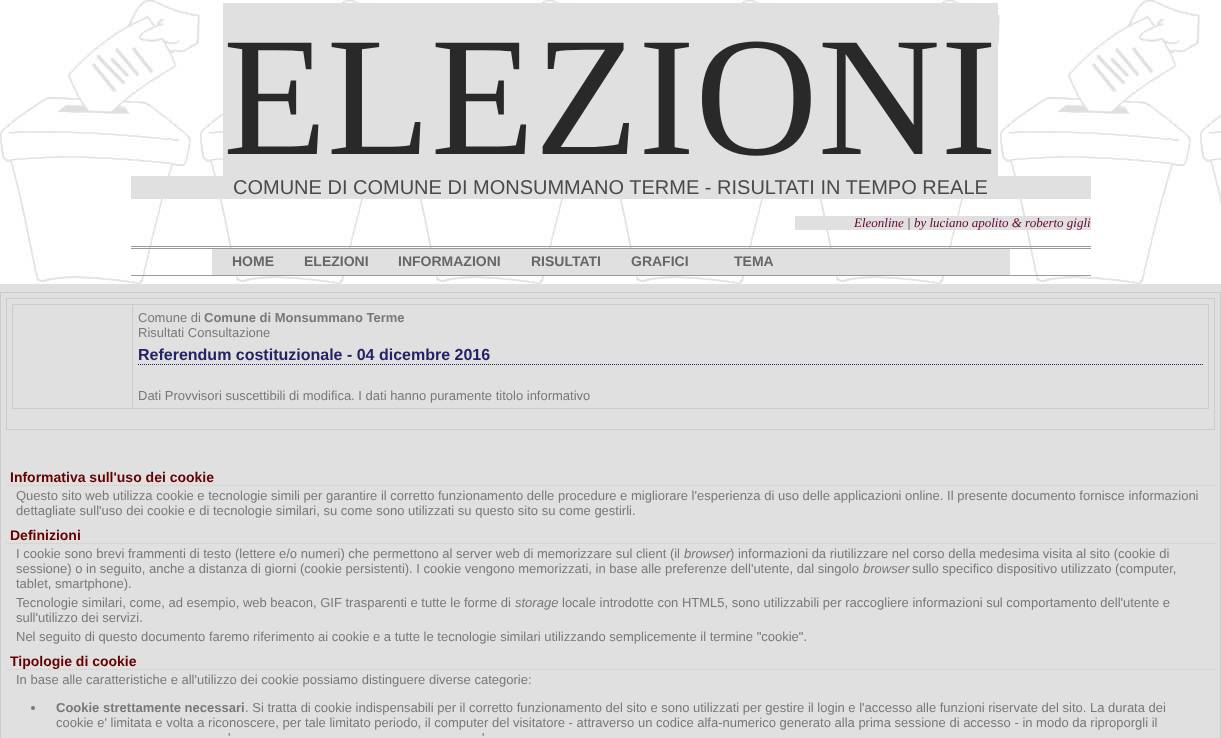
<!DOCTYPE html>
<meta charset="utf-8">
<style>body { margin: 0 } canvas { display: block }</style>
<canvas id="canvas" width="1221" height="738"></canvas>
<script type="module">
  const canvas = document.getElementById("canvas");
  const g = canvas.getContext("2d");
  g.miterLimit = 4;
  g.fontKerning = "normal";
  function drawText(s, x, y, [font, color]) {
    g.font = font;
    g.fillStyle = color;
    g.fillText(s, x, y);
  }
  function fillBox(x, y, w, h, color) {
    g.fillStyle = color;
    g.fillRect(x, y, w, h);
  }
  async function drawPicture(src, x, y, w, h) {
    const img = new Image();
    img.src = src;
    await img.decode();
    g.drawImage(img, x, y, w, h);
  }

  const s1 = ["170px Liberation Serif", "#292929"];
  const s2 = ["20px Liberation Sans", "#4A4A4A"];
  const s3 = ["italic 13px Liberation Serif", "#660033"];
  const s4 = ["bold 14px Liberation Sans", "#666666"];
  const s5 = ["13px Liberation Sans", "#787878"];
  const s6 = ["bold 13px Liberation Sans", "#787878"];
  const s7 = ["bold 16px Liberation Sans", "#222266"];
  const s8 = ["bold 14px Liberation Sans", "#660000"];
  const s9 = ["italic 13px Liberation Sans", "#787878"];

  fillBox(0, 0, 1221, 738, "#E0E0E0");
  await drawPicture("pic1.png", 0, 0, 1221, 284);
  fillBox(223, 3, 775, 173, "#E0E0E0");
  drawText("ELEZIONI", 223, 154, s1);
  fillBox(131, 176, 960, 23, "#E0E0E0");
  drawText("COMUNE DI COMUNE DI MONSUMMANO TERME - RISULTATI IN TEMPO REALE", 233, 194, s2);
  fillBox(131, 246, 960, 1, "#999999");
  fillBox(795, 216, 296, 14, "#E0E0E0");
  drawText("Eleonline | by luciano apolito & roberto gigli", 854, 227, s3);
  fillBox(131, 248, 960, 1, "#999999");
  fillBox(131, 275, 960, 1, "#999999");
  fillBox(212, 249, 798, 26, "#E0E0E0");
  drawText("HOME", 232, 266, s4);
  drawText("ELEZIONI", 304, 266, s4);
  drawText("INFORMAZIONI", 398, 266, s4);
  drawText("RISULTATI", 531, 266, s4);
  drawText("GRAFICI", 631, 266, s4);
  drawText("TEMA", 734, 266, s4);
  fillBox(0, 292, 1221, 1, "#CCCCCC");
  fillBox(1220, 292, 1, 446, "#CCCCCC");
  fillBox(0, 292, 1, 446, "#CCCCCC");
  fillBox(6, 298, 1209, 1, "#CCCCCC");
  fillBox(1214, 298, 1, 132, "#CCCCCC");
  fillBox(6, 429, 1209, 1, "#CCCCCC");
  fillBox(6, 298, 1, 132, "#CCCCCC");
  fillBox(12, 304, 1197, 1, "#CCCCCC");
  fillBox(1208, 304, 1, 105, "#CCCCCC");
  fillBox(12, 408, 1197, 1, "#CCCCCC");
  fillBox(12, 304, 1, 105, "#CCCCCC");
  fillBox(132, 304, 1, 105, "#CCCCCC");
  drawText("Comune di", 138, 322, s5);
  drawText("Comune di Monsummano Terme", 204, 322, s6);
  drawText("Risultati Consultazione", 138, 337, s5);
  g.beginPath();
  g.moveTo(138, 364.5);
  g.lineTo(1203, 364.5);
  g.strokeStyle = "#222266";
  g.setLineDash([1, 1]);
  g.stroke();
  drawText("Referendum costituzionale - 04 dicembre 2016", 138, 360, s7);
  drawText("Dati Provvisori suscettibili di modifica. I dati hanno puramente titolo informativo", 138, 400, s5);
  g.beginPath();
  g.moveTo(6, 485.5);
  g.lineTo(1215, 485.5);
  g.strokeStyle = "#CCCCCC";
  g.stroke();
  drawText("Informativa sull'uso dei cookie", 10, 482, s8);
  drawText("Questo sito web utilizza cookie e tecnologie simili per garantire il corretto funzionamento delle procedure e migliorare l'esperienza di uso delle applicazioni online. Il presente documento fornisce informazioni", 16, 500, s5);
  drawText("dettagliate sull'uso dei cookie e di tecnologie similari, su come sono utilizzati su questo sito su come gestirli.", 16, 515, s5);
  g.beginPath();
  g.moveTo(6, 543.5);
  g.lineTo(1215, 543.5);
  g.stroke();
  drawText("Definizioni", 10, 540, s8);
  drawText("I cookie sono brevi frammenti di testo (lettere e/o numeri) che permettono al server web di memorizzare sul client (il", 16, 558, s5);
  drawText("browser", 684, 558, s9);
  drawText(") informazioni da riutilizzare nel corso della medesima visita al sito (cookie di", 730, 558, s5);
  drawText("sessione) o in seguito, anche a distanza di giorni (cookie persistenti). I cookie vengono memorizzati, in base alle preferenze dell'utente, dal singolo", 16, 573, s5);
  drawText("browser", 863, 573, s9);
  drawText("sullo specifico dispositivo utilizzato (computer,", 912, 573, s5);
  drawText("tablet, smartphone).", 16, 588, s5);
  drawText("Tecnologie similari, come, ad esempio, web beacon, GIF trasparenti e tutte le forme di", 16, 607, s5);
  drawText("storage", 515, 607, s9);
  drawText("locale introdotte con HTML5, sono utilizzabili per raccogliere informazioni sul comportamento dell'utente e", 562, 607, s5);
  drawText("sull'utilizzo dei servizi.", 16, 622, s5);
  drawText("Nel seguito di questo documento faremo riferimento ai cookie e a tutte le tecnologie similari utilizzando semplicemente il termine \"cookie\".", 16, 641, s5);
  g.beginPath();
  g.moveTo(6, 669.5);
  g.lineTo(1215, 669.5);
  g.stroke();
  drawText("Tipologie di cookie", 10, 666, s8);
  drawText("In base alle caratteristiche e all'utilizzo dei cookie possiamo distinguere diverse categorie:", 16, 684, s5);
  g.beginPath();
  g.arc(33, 708, 2, 0, Math.PI * 2);
  g.fill();
  drawText("Cookie strettamente necessari", 56, 712, s6);
  drawText(". Si tratta di cookie indispensabili per il corretto funzionamento del sito e sono utilizzati per gestire il login e l'accesso alle funzioni riservate del sito. La durata dei", 245, 712, s5);
  drawText("cookie e' limitata e volta a riconoscere, per tale limitato periodo, il computer del visitatore - attraverso un codice alfa-numerico generato alla prima sessione di accesso - in modo da riproporgli il", 56, 727, s5);
  drawText("'", 228, 742, s5);
  drawText("'", 482, 742, s5);
</script>
